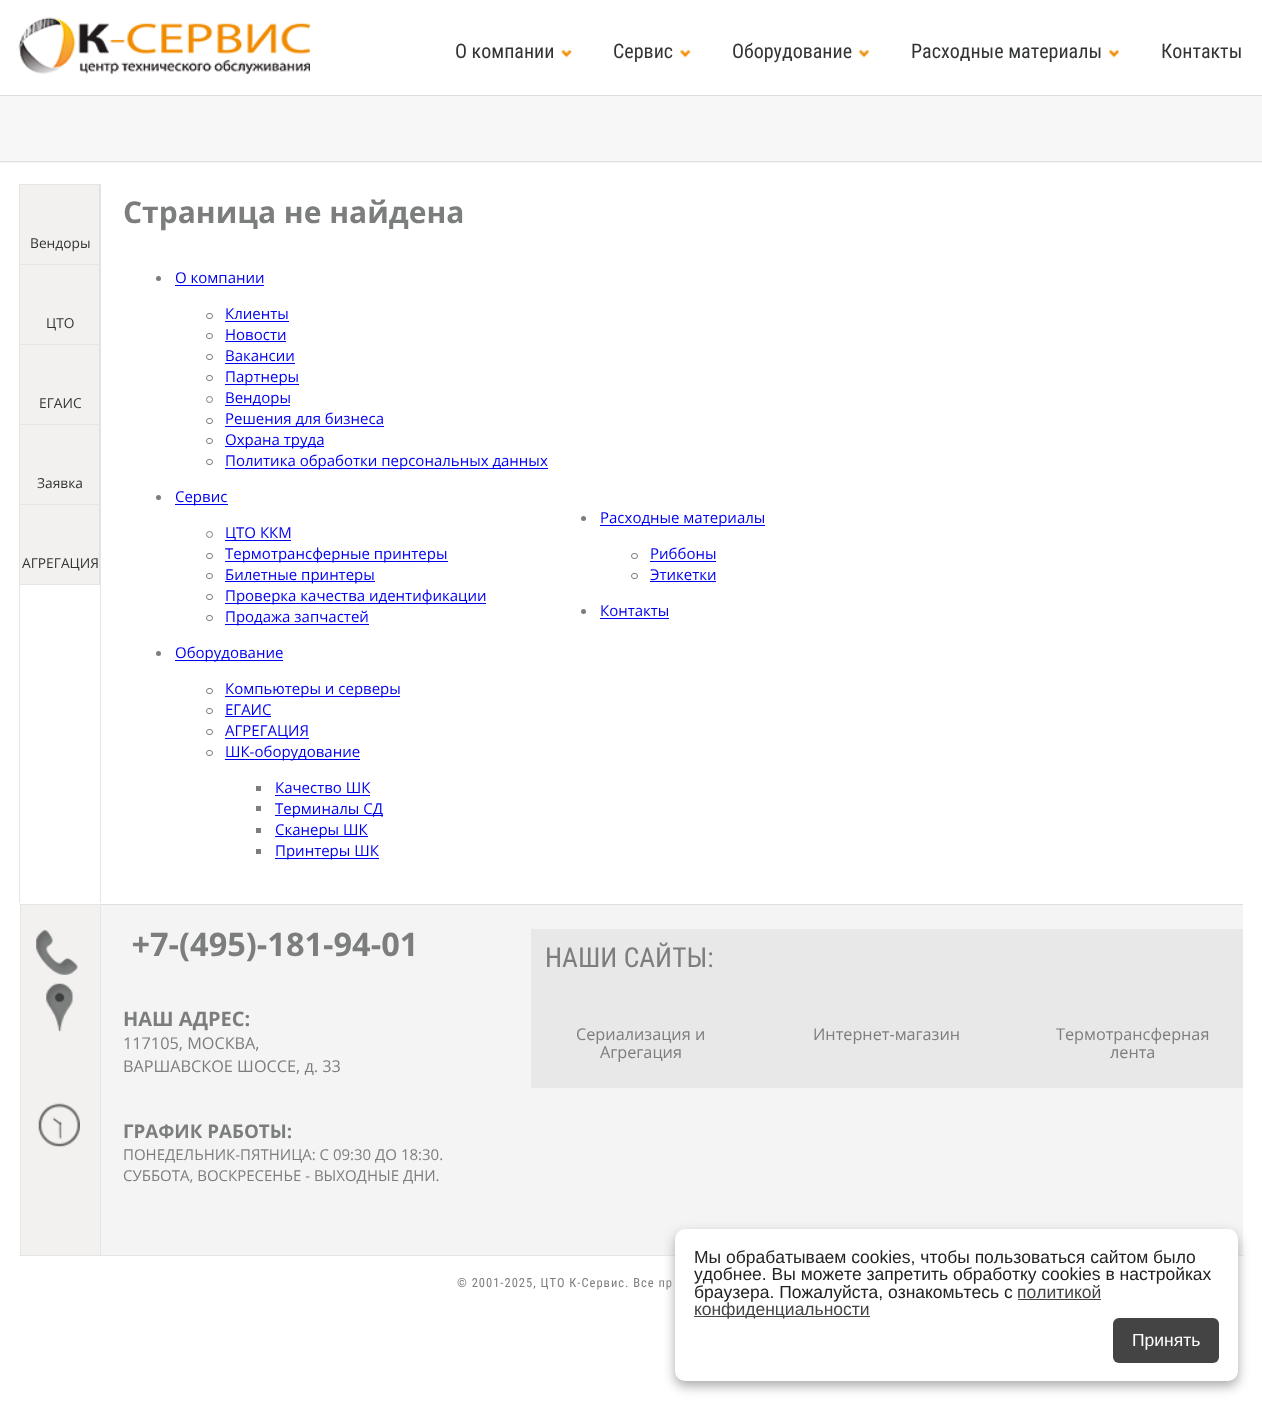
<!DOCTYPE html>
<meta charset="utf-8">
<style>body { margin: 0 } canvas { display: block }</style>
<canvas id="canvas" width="1262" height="1406"></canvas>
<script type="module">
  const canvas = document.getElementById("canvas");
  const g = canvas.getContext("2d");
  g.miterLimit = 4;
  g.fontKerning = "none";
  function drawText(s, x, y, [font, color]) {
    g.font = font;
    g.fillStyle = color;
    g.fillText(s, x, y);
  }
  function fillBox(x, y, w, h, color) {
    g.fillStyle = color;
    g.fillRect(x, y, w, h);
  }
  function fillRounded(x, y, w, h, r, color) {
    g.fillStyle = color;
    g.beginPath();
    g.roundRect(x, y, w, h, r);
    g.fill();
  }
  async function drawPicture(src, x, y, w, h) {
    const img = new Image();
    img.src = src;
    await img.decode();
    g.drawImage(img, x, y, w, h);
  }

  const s1 = ["20px Roboto Condensed", "#333434"];
  const s2 = ["13.75px Open Sans", "#333434"];
  const s3 = ["bold 30px Open Sans", "#7C7D7D"];
  const s4 = ["15px Open Sans", "#0000EE"];
  const s5 = ["bold 32.5px Open Sans", "#7C7D7D"];
  const s6 = ["bold 20px Open Sans", "#7C7D7D"];
  const s7 = ["16.25px Open Sans", "#7C7D7D"];
  const s8 = ["bold 18.75px Open Sans", "#7C7D7D"];
  const s9 = ["15px Open Sans", "#7C7D7D"];
  const s10 = ["27.5px Roboto Condensed", "#7C7D7D"];
  const s11 = ["12.5px Roboto Condensed", "#7C7D7D"];
  const s12 = ["17.5px Liberation Sans", "#222222"];
  const s13 = ["17.5px Liberation Sans", "#444444"];
  const s14 = ["17.5px Liberation Sans", "#FFFFFF"];

  fillBox(0, 0, 1262, 1406, "#FFFFFF");
  await drawPicture("pic1.png", 18, 17, 292, 57);
  drawText("О компании", 455, 58, s1);
  await drawPicture("pic2.png", 561, 49, 11, 9);
  drawText("Сервис", 613, 58, s1);
  await drawPicture("pic3.png", 680, 49, 11, 9);
  drawText("Оборудование", 732, 58, s1);
  await drawPicture("pic4.png", 858, 49, 12, 9);
  drawText("Расходные материалы", 911, 58, s1);
  await drawPicture("pic4.png", 1108, 49, 12, 9);
  drawText("Контакты", 1161, 58, s1);
  fillBox(0, 96, 1262, 67, "#F7F7F7");
  fillBox(0, 95, 1262, 1, "#DEDEDE");
  fillBox(0, 161, 1262, 1, "#DEDEDE");
  fillBox(19, 1255, 1225, 1, "#E5E5E5");
  fillBox(19, 184, 82, 1, "#E5E5E5");
  fillBox(100, 184, 1, 719, "#E5E5E5");
  fillBox(19, 184, 1, 719, "#E5E5E5");
  fillBox(20, 185, 79, 79, "#F2F1EF");
  fillBox(99, 185, 1, 400, "#E1E0DE");
  fillBox(20, 264, 80, 1, "#E5E5E5");
  drawText("Вендоры", 30, 248, s2);
  fillBox(20, 265, 79, 79, "#F2F1EF");
  fillBox(20, 344, 80, 1, "#E5E5E5");
  drawText("ЦТО", 46, 328, s2);
  fillBox(20, 345, 79, 79, "#F2F1EF");
  fillBox(20, 424, 80, 1, "#E5E5E5");
  drawText("ЕГАИС", 39, 408, s2);
  fillBox(20, 425, 79, 79, "#F2F1EF");
  fillBox(20, 504, 80, 1, "#E5E5E5");
  drawText("Заявка", 37, 488, s2);
  fillBox(20, 505, 79, 79, "#F2F1EF");
  fillBox(20, 584, 80, 1, "#E5E5E5");
  drawText("АГРЕГАЦИЯ", 22, 568, s2);
  drawText("Страница не найдена", 123, 223, s3);
  g.beginPath();
  g.arc(158.5, 278.5, 2.5, 0, Math.PI * 2);
  g.fill();
  drawText("О компании", 175, 283, s4);
  fillBox(175, 285, 89, 1, "#0000EE");
  g.beginPath();
  g.roundRect(206.5, 313.5, 6, 5, 2.5);
  g.strokeStyle = "#7C7D7D";
  g.stroke();
  drawText("Клиенты", 225, 319, s4);
  fillBox(225, 321, 64, 1, "#0000EE");
  g.beginPath();
  g.roundRect(206.5, 333.5, 6, 5, 2.5);
  g.stroke();
  drawText("Новости", 225, 340, s4);
  fillBox(225, 341, 61, 1, "#0000EE");
  g.beginPath();
  g.roundRect(206.5, 354.5, 6, 5, 2.5);
  g.stroke();
  drawText("Вакансии", 225, 361, s4);
  fillBox(225, 363, 70, 1, "#0000EE");
  g.beginPath();
  g.roundRect(206.5, 375.5, 6, 5, 2.5);
  g.stroke();
  fillBox(225, 384, 74, 1, "#0000EE");
  drawText("Партнеры", 225, 382, s4);
  g.beginPath();
  g.arc(209.5, 399.5, 3, 0, Math.PI * 2);
  g.stroke();
  fillBox(225, 405, 65, 1, "#0000EE");
  drawText("Вендоры", 225, 403, s4);
  g.beginPath();
  g.roundRect(206.5, 418.5, 6, 5, 2.5);
  g.stroke();
  fillBox(225, 426, 159, 1, "#0000EE");
  drawText("Решения для бизнеса", 225, 424, s4);
  g.beginPath();
  g.roundRect(206.5, 438.5, 6, 5, 2.5);
  g.stroke();
  fillBox(225, 446, 99, 1, "#0000EE");
  drawText("Охрана труда", 225, 445, s4);
  g.beginPath();
  g.roundRect(206.5, 459.5, 6, 5, 2.5);
  g.stroke();
  fillBox(225, 468, 323, 1, "#0000EE");
  drawText("Политика обработки персональных данных", 225, 466, s4);
  g.fillStyle = "#7C7D7D";
  g.beginPath();
  g.arc(158.5, 497.5, 2.5, 0, Math.PI * 2);
  g.fill();
  fillBox(175, 504, 53, 1, "#0000EE");
  drawText("Сервис", 175, 502, s4);
  g.beginPath();
  g.arc(209.5, 534.5, 3, 0, Math.PI * 2);
  g.stroke();
  fillBox(225, 540, 66, 1, "#0000EE");
  drawText("ЦТО ККМ", 225, 538, s4);
  g.beginPath();
  g.roundRect(206.5, 553.5, 6, 5, 2.5);
  g.stroke();
  fillBox(225, 561, 223, 1, "#0000EE");
  drawText("Термотрансферные принтеры", 225, 559, s4);
  g.beginPath();
  g.roundRect(206.5, 573.5, 6, 5, 2.5);
  g.stroke();
  fillBox(225, 581, 150, 1, "#0000EE");
  drawText("Билетные принтеры", 225, 580, s4);
  g.beginPath();
  g.roundRect(206.5, 594.5, 6, 5, 2.5);
  g.stroke();
  fillBox(225, 603, 261, 1, "#0000EE");
  drawText("Проверка качества идентификации", 225, 601, s4);
  g.beginPath();
  g.roundRect(206.5, 615.5, 6, 5, 2.5);
  g.stroke();
  fillBox(225, 624, 144, 1, "#0000EE");
  drawText("Продажа запчастей", 225, 622, s4);
  g.fillStyle = "#7C7D7D";
  g.beginPath();
  g.arc(158.5, 653.5, 2.5, 0, Math.PI * 2);
  g.fill();
  fillBox(175, 660, 108, 1, "#0000EE");
  drawText("Оборудование", 175, 658, s4);
  g.beginPath();
  g.roundRect(206.5, 688.5, 6, 5, 2.5);
  g.stroke();
  fillBox(225, 696, 175, 1, "#0000EE");
  drawText("Компьютеры и серверы", 225, 694, s4);
  g.beginPath();
  g.roundRect(206.5, 708.5, 6, 5, 2.5);
  g.stroke();
  drawText("ЕГАИС", 225, 715, s4);
  fillBox(225, 716, 46, 1, "#0000EE");
  g.beginPath();
  g.roundRect(206.5, 729.5, 6, 5, 2.5);
  g.stroke();
  fillBox(225, 738, 84, 1, "#0000EE");
  drawText("АГРЕГАЦИЯ", 225, 736, s4);
  g.beginPath();
  g.roundRect(206.5, 750.5, 6, 5, 2.5);
  g.stroke();
  fillBox(225, 759, 135, 1, "#0000EE");
  drawText("ШК-оборудование", 225, 757, s4);
  fillBox(256, 786, 5, 5, "#7C7D7D");
  drawText("Качество ШК", 275, 793, s4);
  fillBox(275, 795, 95, 1, "#0000EE");
  fillBox(256, 806, 5, 5, "#7C7D7D");
  fillBox(275, 815, 108, 1, "#0000EE");
  drawText("Терминалы СД", 275, 814, s4);
  fillBox(256, 828, 5, 5, "#7C7D7D");
  fillBox(275, 836, 93, 1, "#0000EE");
  drawText("Сканеры ШК", 275, 835, s4);
  fillBox(256, 849, 5, 5, "#7C7D7D");
  fillBox(275, 858, 104, 1, "#0000EE");
  drawText("Принтеры ШК", 275, 856, s4);
  g.fillStyle = "#7C7D7D";
  g.beginPath();
  g.arc(583.5, 518.5, 2.5, 0, Math.PI * 2);
  g.fill();
  fillBox(600, 525, 165, 1, "#0000EE");
  drawText("Расходные материалы", 600, 523, s4);
  g.beginPath();
  g.roundRect(631.5, 553.5, 6, 5, 2.5);
  g.stroke();
  drawText("Риббоны", 650, 559, s4);
  fillBox(650, 561, 66, 1, "#0000EE");
  g.beginPath();
  g.roundRect(631.5, 573.5, 6, 5, 2.5);
  g.stroke();
  drawText("Этикетки", 650, 580, s4);
  fillBox(650, 581, 66, 1, "#0000EE");
  g.fillStyle = "#7C7D7D";
  g.beginPath();
  g.arc(583.5, 611.5, 2.5, 0, Math.PI * 2);
  g.fill();
  drawText("Контакты", 600, 616, s4);
  fillBox(600, 618, 69, 1, "#0000EE");
  fillBox(101, 905, 1142, 350, "#F4F4F4");
  fillBox(101, 904, 1142, 1, "#DEDEDE");
  fillBox(21, 905, 79, 350, "#F2F1EF");
  fillBox(20, 904, 81, 1, "#E5E5E5");
  fillBox(100, 904, 1, 351, "#E5E5E5");
  fillBox(20, 904, 1, 351, "#E5E5E5");
  await drawPicture("pic5.png", 36, 930, 42, 45);
  drawText(" +7-(495)-181-94-01", 123, 956, s5);
  await drawPicture("pic6.png", 46, 983, 27, 49);
  drawText("НАШ АДРЕС:", 123, 1026, s6);
  drawText("117105, МОСКВА,", 123, 1049, s7);
  drawText("ВАРШАВСКОЕ ШОССЕ, д. 33", 123, 1072, s7);
  await drawPicture("pic7.png", 38, 1103, 42, 44);
  drawText("ГРАФИК РАБОТЫ:", 123, 1138, s8);
  drawText("ПОНЕДЕЛЬНИК-ПЯТНИЦА: С 09:30 ДО 18:30.", 123, 1160, s9);
  drawText("СУББОТА, ВОСКРЕСЕНЬЕ - ВЫХОДНЫЕ ДНИ.", 123, 1181, s9);
  fillBox(531, 929, 712, 159, "#E8E8E8");
  drawText("НАШИ САЙТЫ:", 545, 967, s10);
  drawText("Сериализация и", 576, 1040, s7);
  drawText("Агрегация", 600, 1058, s7);
  drawText("Интернет-магазин", 813, 1040, s7);
  drawText("Термотрансферная", 1056, 1040, s7);
  drawText("лента", 1110, 1058, s7);
  g.letterSpacing = "1px";
  drawText("© 2001-2025, ЦТО К-Сервис. Все пр", 457, 1287, s11);
  g.fillStyle = "#AAAAAA";
  g.filter = "blur(6px)";
  g.beginPath();
  g.roundRect(675, 1234, 563, 152, 10);
  g.fill();
  g.filter = "none";
  fillRounded(675, 1229, 563, 152, 10, "#FFFFFF");
  g.letterSpacing = "0px";
  drawText("Мы обрабатываем cookies, чтобы пользоваться сайтом было", 694, 1263, s12);
  drawText("удобнее. Вы можете запретить обработку cookies в настройках", 694, 1280, s12);
  drawText("браузера. Пожалуйста, ознакомьтесь с", 694, 1298, s12);
  drawText("политикой", 1017, 1298, s13);
  fillBox(1018, 1299, 83, 1, "#444444");
  fillBox(694, 1316, 176, 1, "#444444");
  drawText("конфиденциальности", 694, 1315, s13);
  fillRounded(1113, 1318, 106, 45, 6, "#444444");
  drawText("Принять", 1132, 1346, s14);
</script>
